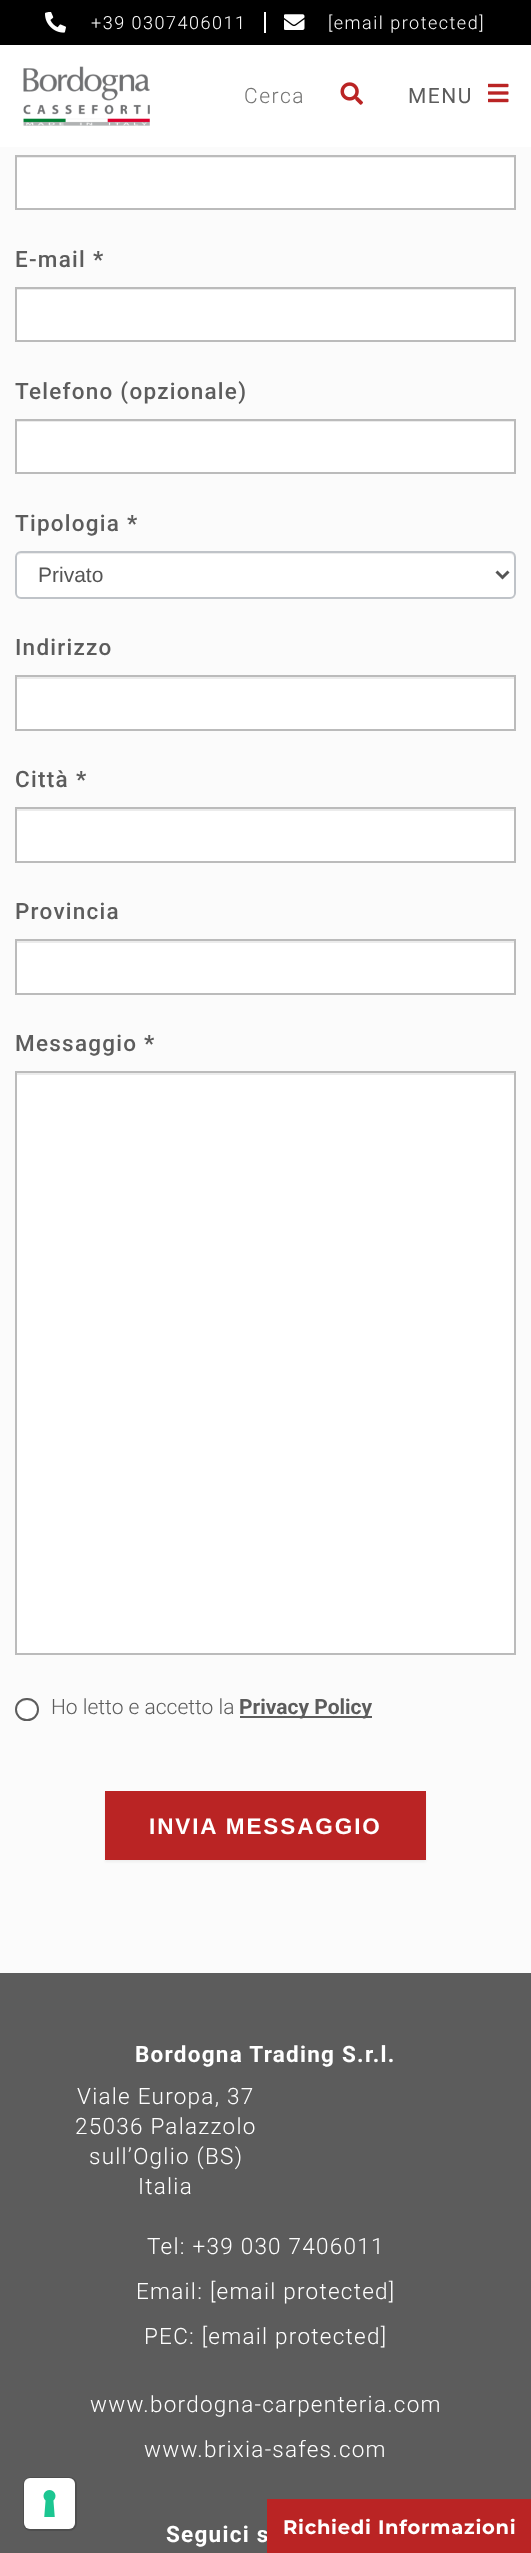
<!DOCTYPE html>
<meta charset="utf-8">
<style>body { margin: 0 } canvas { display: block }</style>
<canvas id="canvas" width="531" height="2553"></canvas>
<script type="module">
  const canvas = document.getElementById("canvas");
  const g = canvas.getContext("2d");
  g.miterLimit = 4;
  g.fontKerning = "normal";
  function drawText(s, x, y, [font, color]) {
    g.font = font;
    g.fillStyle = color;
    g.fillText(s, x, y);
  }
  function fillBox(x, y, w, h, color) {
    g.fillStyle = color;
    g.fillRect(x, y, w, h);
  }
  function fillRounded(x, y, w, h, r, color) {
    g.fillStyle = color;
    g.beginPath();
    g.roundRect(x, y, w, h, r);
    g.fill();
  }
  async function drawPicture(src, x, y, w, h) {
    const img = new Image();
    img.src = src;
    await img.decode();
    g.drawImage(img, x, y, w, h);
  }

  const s1 = ["300 18px Roboto", "#FFFFFF"];
  const s2 = ["300 21px Roboto", "#737372"];
  const s3 = ["21px Roboto", "#5C5C5C"];
  const s4 = ["500 22.5px Roboto", "#5C5C5C"];
  const s5 = ["bold 22.5px Roboto", "#5C5C5C"];
  const s6 = ["21px Liberation Sans", "#555555"];
  const s7 = ["300 21px Roboto", "#5C5C5C"];
  const s8 = ["bold 21px Roboto", "#5C5C5C"];
  const s9 = ["bold 22.5px Liberation Sans", "#FFFFFF"];
  const s10 = ["bold 22.5px Roboto", "#FFFFFF"];
  const s11 = ["300 22.5px Roboto", "#FFFFFF"];
  const s12 = ["bold 19.5px Montserrat", "#FFFFFF"];

  fillBox(0, 0, 531, 2553, "#FBFBFB");
  fillBox(0, 0, 531, 45, "#000000");
  fillBox(264, 12, 2, 21, "#FFFFFF");
  await drawPicture("pic1.png", 45, 12, 21, 21);
  g.letterSpacing = "1.5px";
  drawText("+39 0307406011", 91, 29, s1);
  await drawPicture("pic2.png", 284, 14, 21, 16);
  drawText("[email protected]", 328, 29, s1);
  fillBox(0, 45, 531, 102, "#FFFFFF");
  await drawPicture("pic3.png", 23, 66, 127, 60);
  drawText("Cerca", 244, 103, s2);
  await drawPicture("pic4.png", 340, 82, 23, 23);
  drawText("MENU", 408, 103, s3);
  await drawPicture("pic5.png", 488, 83, 21, 20);
  fillBox(17, 158, 497, 50, "#FFFFFF");
  fillBox(17, 157, 498, 1, "#ECECEC");
  g.strokeStyle = "#BBBBBB";
  g.lineWidth = 2;
  g.strokeRect(16, 156, 499, 53);
  g.letterSpacing = "1.25px";
  drawText("E-mail", 15, 267, s4);
  drawText("*", 93, 267, s5);
  fillBox(17, 290, 497, 50, "#FFFFFF");
  fillBox(17, 289, 498, 1, "#ECECEC");
  g.strokeRect(16, 288, 499, 53);
  drawText("Telefono (opzionale)", 15, 399, s4);
  fillBox(17, 422, 497, 50, "#FFFFFF");
  fillBox(17, 421, 498, 1, "#ECECEC");
  g.strokeRect(16, 420, 499, 53);
  drawText("Tipologia", 15, 531, s4);
  drawText("*", 127, 531, s5);
  fillRounded(15, 551, 501, 48, 6, "#FFFFFF");
  g.fillStyle = "#ECECEC";
  g.beginPath();
  g.moveTo(21, 554);
  g.lineTo(510, 554);
  g.bezierCurveTo(512, 554, 514, 556, 514, 558);
  g.lineTo(514, 595);
  g.bezierCurveTo(515, 594, 515, 593, 515, 592);
  g.lineTo(515, 557);
  g.bezierCurveTo(515, 554, 513, 552, 510, 552);
  g.lineTo(22, 552);
  g.bezierCurveTo(20, 552, 18, 554, 17, 556);
  g.bezierCurveTo(18, 555, 20, 554, 21, 554);
  g.closePath();
  g.fill();
  g.beginPath();
  g.roundRect(16, 552, 499, 46, 5);
  g.strokeStyle = "#BFC3C8";
  g.stroke();
  g.beginPath();
  g.moveTo(496.5, 571.5);
  g.lineTo(502.5, 577.5);
  g.lineTo(508.5, 571.5);
  g.strokeStyle = "#555555";
  g.lineWidth = 3;
  g.stroke();
  g.letterSpacing = "0px";
  drawText("Privato", 38, 582, s6);
  g.letterSpacing = "1.25px";
  drawText("Indirizzo", 15, 655, s4);
  fillBox(17, 679, 497, 50, "#FFFFFF");
  fillBox(17, 677, 498, 2, "#ECECEC");
  g.strokeStyle = "#BBBBBB";
  g.lineWidth = 2;
  g.strokeRect(16, 676, 499, 54);
  drawText("Città", 15, 787, s4);
  drawText("*", 76, 787, s5);
  fillBox(17, 811, 497, 50, "#FFFFFF");
  fillBox(17, 809, 498, 2, "#ECECEC");
  g.strokeRect(16, 808, 499, 54);
  drawText("Provincia", 15, 919, s4);
  fillBox(17, 943, 497, 50, "#FFFFFF");
  fillBox(17, 941, 498, 2, "#ECECEC");
  g.strokeRect(16, 940, 499, 54);
  drawText("Messaggio", 15, 1051, s4);
  drawText("*", 144, 1051, s5);
  fillBox(17, 1075, 497, 578, "#FFFFFF");
  fillBox(17, 1073, 498, 2, "#ECECEC");
  g.strokeRect(16, 1072, 499, 582);
  fillRounded(15, 1698, 24, 23, 11.5, "#FFFFFF");
  g.fillStyle = "#ECECEC";
  g.beginPath();
  g.moveTo(27, 1701);
  g.bezierCurveTo(36, 1701, 39, 1708.5, 37, 1714);
  g.bezierCurveTo(39.5, 1709.5, 37.5, 1703, 32, 1700.5);
  g.bezierCurveTo(27, 1698.5, 20, 1700.5, 18, 1705.5);
  g.bezierCurveTo(19.5, 1703, 22.5, 1701, 27, 1701);
  g.closePath();
  g.fill();
  g.beginPath();
  g.roundRect(16, 1699, 22, 21, 10.5);
  g.strokeStyle = "#5C5C5C";
  g.stroke();
  g.letterSpacing = "0px";
  drawText("Ho letto e accetto la", 51, 1714, s7);
  fillBox(240, 1716, 132, 2, "#5C5C5C");
  drawText("Privacy Policy", 239, 1714, s8);
  g.fillStyle = "#EEEEEE";
  g.filter = "blur(1px)";
  g.beginPath();
  g.rect(105, 1793, 321, 69);
  g.fill();
  g.filter = "none";
  fillBox(105, 1791, 321, 69, "#BA2424");
  g.letterSpacing = "1.9px";
  drawText("INVIA MESSAGGIO", 149, 1834, s9);
  fillBox(0, 1973, 531, 580, "#5C5C5C");
  g.letterSpacing = "1.25px";
  drawText("Bordogna Trading S.r.l.", 135, 2062, s10);
  drawText("Viale Europa, 37", 77, 2104, s11);
  drawText("25036 Palazzolo", 75, 2134, s11);
  drawText("sull’Oglio (BS)", 89, 2164, s11);
  drawText("Italia", 138, 2194, s11);
  drawText("Tel: +39 030 7406011", 147, 2254, s11);
  drawText("Email: [email protected]", 136, 2299, s11);
  drawText("PEC: [email protected]", 144, 2344, s11);
  drawText("www.bordogna-carpenteria.com", 90, 2412, s11);
  drawText("www.brixia-safes.com", 144, 2457, s11);
  drawText("Seguici s", 166, 2542, s10);
  fillBox(267, 2499, 264, 54, "#BA2424");
  g.letterSpacing = "0.75px";
  drawText("Richiedi Informazioni", 283, 2534, s12);
  g.beginPath();
  g.roundRect(24, 2478, 52, 52, 7);
  g.strokeStyle = "#4E4E4E";
  g.stroke();
  fillRounded(24, 2478, 51, 51, 6, "#FFFFFF");
  await drawPicture("pic6.png", 43, 2490, 13, 27);
</script>
